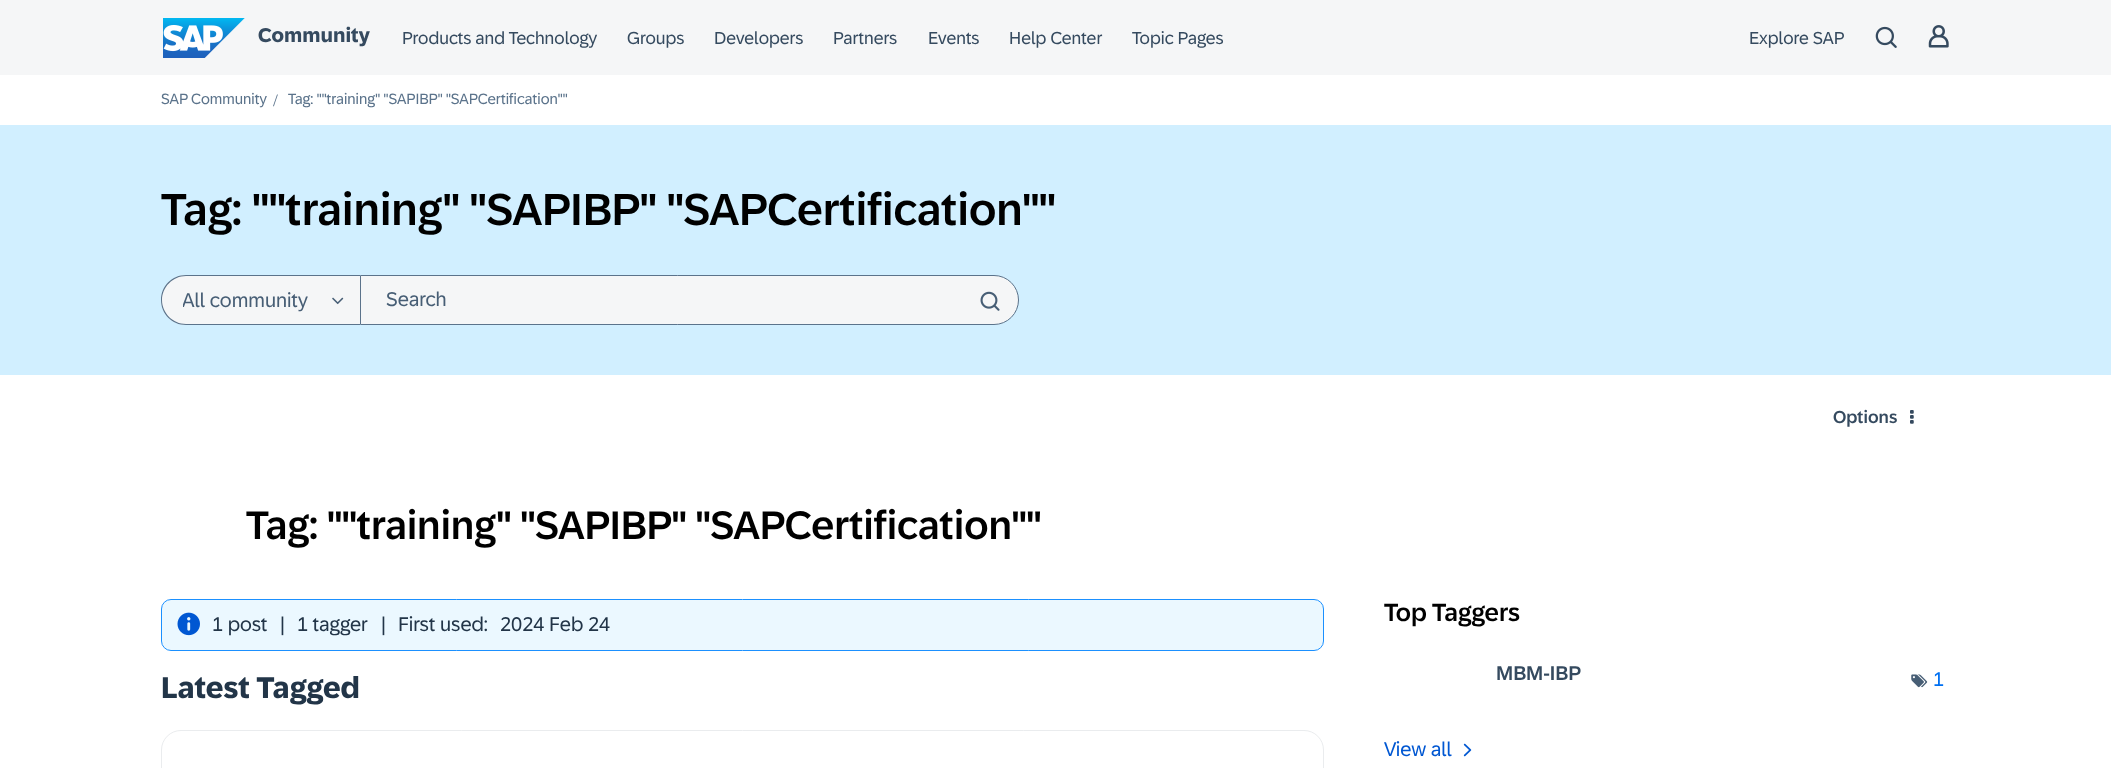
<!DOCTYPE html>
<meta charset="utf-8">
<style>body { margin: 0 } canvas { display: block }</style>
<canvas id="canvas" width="2111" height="768"></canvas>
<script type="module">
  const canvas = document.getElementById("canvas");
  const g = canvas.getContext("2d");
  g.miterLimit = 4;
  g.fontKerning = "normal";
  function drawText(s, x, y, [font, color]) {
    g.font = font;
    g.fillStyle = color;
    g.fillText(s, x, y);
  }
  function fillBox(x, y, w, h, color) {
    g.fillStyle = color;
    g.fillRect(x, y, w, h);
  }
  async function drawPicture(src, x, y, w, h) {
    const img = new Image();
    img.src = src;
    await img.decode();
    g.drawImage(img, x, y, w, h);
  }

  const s1 = ["bold 20px '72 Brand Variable'", "#354A5F"];
  const s2 = ["17.5px '72 Brand Variable'", "#354A5F"];
  const s3 = ["15px '72 Brand Variable'", "#5B738B"];
  const s4 = ["17.5px Liberation Serif", "#5B738B"];
  const s5 = ["500 45px '72 Brand Variable'", "#000000"];
  const s6 = ["20px '72 Brand Variable'", "#475E75"];
  const s7 = ["500 17.5px '72 Brand Variable'", "#354A5F"];
  const s8 = ["500 40px '72 Brand Variable'", "#000000"];
  const s9 = ["20px '72 Brand Variable'", "#223548"];
  const s10 = ["bold 30px '72 Brand Variable'", "#223548"];
  const s11 = ["500 25px '72 Brand Variable'", "#000000"];
  const s12 = ["500 20px '72 Brand Variable'", "#354A5F"];
  const s13 = ["20px '72 Brand Variable'", "#0070F2"];
  const s14 = ["20px '72 Brand Variable'", "#0057D2"];

  fillBox(0, 0, 2111, 768, "#FFFFFF");
  fillBox(0, 0, 2111, 75, "#F5F6F7");
  await drawPicture("pic1.png", 163, 18, 82, 40);
  drawText("Community", 258, 42, s1);
  drawText("Products and Technology", 402, 44, s2);
  drawText("Groups", 627, 44, s2);
  drawText("Developers", 714, 44, s2);
  drawText("Partners", 833, 44, s2);
  drawText("Events", 928, 44, s2);
  drawText("Help Center", 1009, 44, s2);
  drawText("Topic Pages", 1132, 44, s2);
  drawText("Explore SAP", 1749, 44, s2);
  await drawPicture("pic2.png", 1875, 26, 22, 22);
  await drawPicture("pic3.png", 1928, 25, 21, 23);
  drawText("SAP Community", 161, 104, s3);
  drawText("/", 273, 106, s4);
  drawText("Tag: \"\"training\" \"SAPIBP\" \"SAPCertification\"\"", 288, 104, s3);
  fillBox(0, 125, 2111, 250, "#D1EFFF");
  drawText("Tag: \"\"training\" \"SAPIBP\" \"SAPCertification\"\"", 161, 225, s5);
  g.fillStyle = "#F5F6F7";
  g.beginPath();
  g.roundRect(161, 275, 199, 50, [25, 0, 0, 25]);
  g.fill();
  g.fillStyle = "#5B738B";
  g.beginPath();
  g.moveTo(186, 275);
  g.lineTo(360, 275);
  g.lineTo(360, 325);
  g.lineTo(186, 325);
  g.bezierCurveTo(172, 325, 161, 314, 161, 300);
  g.bezierCurveTo(161, 286, 172, 275, 186, 275);
  g.closePath();
  g.moveTo(186, 276);
  g.lineTo(360, 276);
  g.lineTo(360, 324);
  g.lineTo(186, 324);
  g.bezierCurveTo(173, 324, 162, 313, 162, 300);
  g.bezierCurveTo(162, 287, 173, 276, 186, 276);
  g.closePath();
  g.fill("evenodd");
  g.save();
  g.beginPath();
  g.rect(183, 286, 147, 30);
  g.clip();
  drawText("All community", 182, 307, s6);
  g.restore();
  await drawPicture("pic4.png", 332, 297, 12, 8);
  g.fillStyle = "#F5F6F7";
  g.beginPath();
  g.roundRect(360.5, 275.5, 658, 49, [0, 24.5, 24.5, 0]);
  g.fill();
  g.strokeStyle = "#5B738B";
  g.stroke();
  drawText("Search", 386, 306, s6);
  await drawPicture("pic5.png", 980, 291, 20, 20);
  drawText("Options", 1833, 423, s7);
  await drawPicture("pic6.png", 1910, 410, 4, 14);
  drawText("Tag: \"\"training\" \"SAPIBP\" \"SAPCertification\"\"", 246, 539, s8);
  g.fillStyle = "#EBF8FF";
  g.beginPath();
  g.roundRect(161.5, 599.5, 1162, 51, 9.5);
  g.fill();
  g.strokeStyle = "#1B90FF";
  g.stroke();
  await drawPicture("pic7.png", 177, 612, 23, 24);
  drawText("1 post", 212, 631, s9);
  drawText("|", 280, 631, s9);
  drawText("1 tagger", 297, 631, s9);
  drawText("|", 381, 631, s9);
  drawText("First used:", 398, 631, s9);
  drawText("2024 Feb 24", 500, 631, s9);
  drawText("Latest Tagged", 161, 698, s10);
  g.beginPath();
  g.roundRect(161.5, 730.5, 1162, 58, 19.5);
  g.strokeStyle = "#EAECEE";
  g.stroke();
  drawText("Top Taggers", 1384, 621, s11);
  drawText("MBM-IBP", 1496, 680, s12);
  await drawPicture("pic8.png", 1911, 674, 17, 14);
  drawText("1", 1933, 686, s13);
  drawText("View all", 1384, 756, s14);
  await drawPicture("pic9.png", 1463, 743, 9, 14);
</script>
